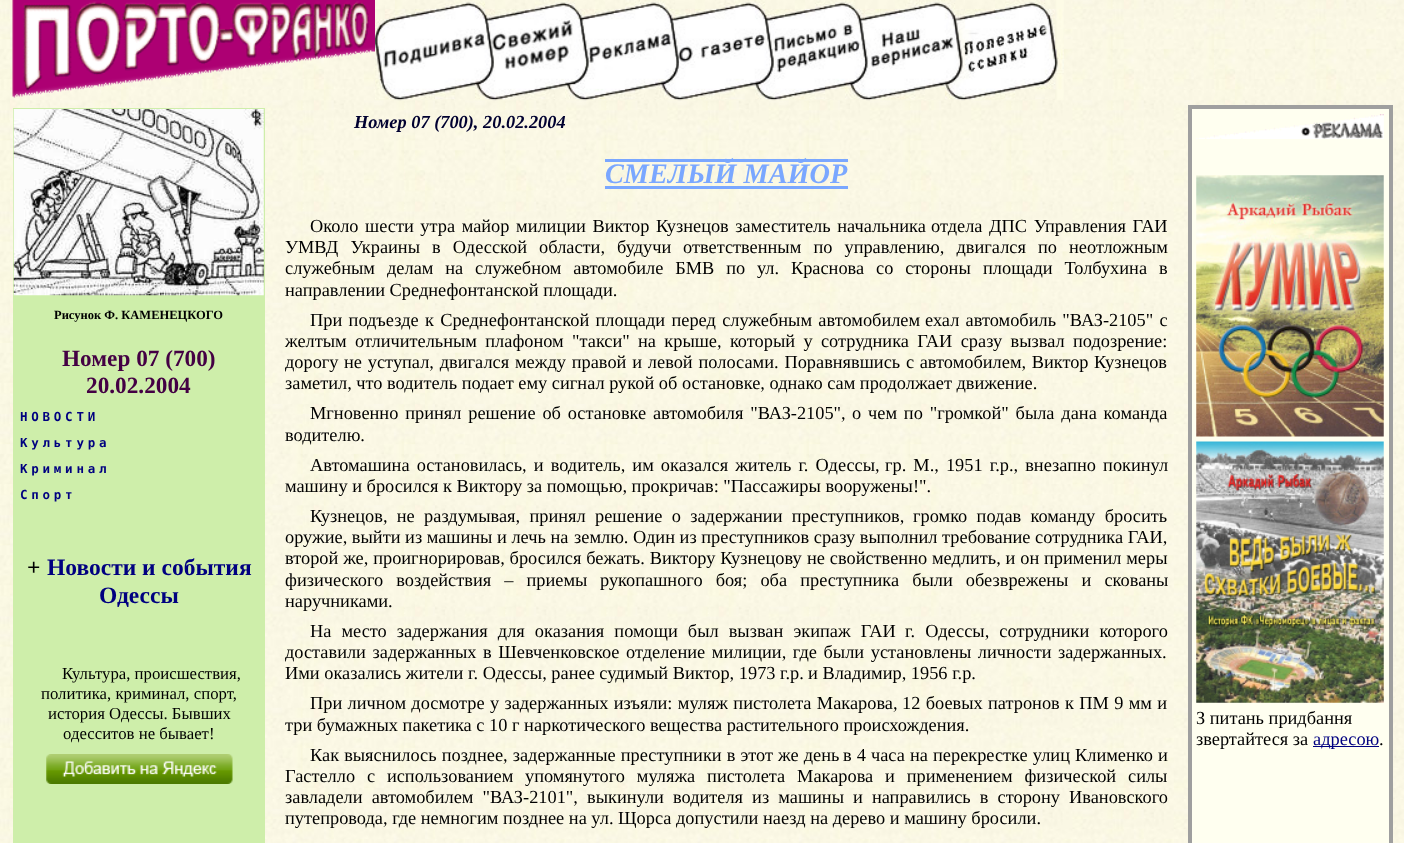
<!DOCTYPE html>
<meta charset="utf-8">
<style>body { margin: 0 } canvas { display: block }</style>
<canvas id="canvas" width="1404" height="843"></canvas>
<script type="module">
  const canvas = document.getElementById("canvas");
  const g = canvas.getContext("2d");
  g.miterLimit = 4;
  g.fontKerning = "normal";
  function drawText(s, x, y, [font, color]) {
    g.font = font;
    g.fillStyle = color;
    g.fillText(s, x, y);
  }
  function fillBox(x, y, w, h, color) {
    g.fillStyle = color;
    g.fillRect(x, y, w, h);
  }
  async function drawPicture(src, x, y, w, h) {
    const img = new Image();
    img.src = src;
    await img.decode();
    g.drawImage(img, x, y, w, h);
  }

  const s1 = ["bold 12.5px Liberation Serif", "#000000"];
  const s2 = ["bold 23.25px Liberation Serif", "#440044"];
  const s3 = ["bold 12.5px DejaVu Sans Mono", "#000080"];
  const s4 = ["bold 23.5px Liberation Serif", "#000000"];
  const s5 = ["bold 23.5px Liberation Serif", "#000080"];
  const s6 = ["16.75px Liberation Serif", "#000000"];
  const s7 = ["italic bold 18.35px Liberation Serif", "#000030"];
  const s8 = ["italic bold 28.25px Liberation Serif", "#7AA7FF"];
  const s9 = ["18.35px Liberation Serif", "#000000"];
  const s10 = ["18.35px Liberation Serif", "#000080"];

  fillBox(0, 0, 1404, 843, "#FFFFFF");
  await drawPicture("pic1.png", 0, 0, 1404, 843);
  await drawPicture("pic2.png", 12, 0, 363, 98);
  await drawPicture("pic3.png", 375, 0, 689, 101);
  fillBox(13, 108, 252, 735, "#CEEEAA");
  await drawPicture("pic4.png", 13, 109, 251, 187);
  drawText("Рисунок Ф. КАМЕНЕЦКОГО", 54, 319, s1);
  drawText("Номер 07 (700)", 62, 366, s2);
  drawText("20.02.2004", 86, 393, s2);
  g.letterSpacing = "3.75px";
  drawText("НОВОСТИ", 20, 421, s3);
  drawText("Культура", 20, 447, s3);
  drawText("Криминал", 20, 473, s3);
  drawText("Спорт", 20, 499, s3);
  g.letterSpacing = "0px";
  drawText("+", 27, 575, s4);
  drawText("Новости и события", 47, 575, s5);
  drawText("Одессы", 99, 603, s5);
  drawText("Культура, происшествия,", 62, 679, s6);
  drawText("политика, криминал, спорт,", 41, 699, s6);
  drawText("история Одессы. Бывших", 48, 719, s6);
  drawText("одесситов не бывает!", 63, 739, s6);
  await drawPicture("pic5.png", 46, 754, 187, 30);
  drawText("Номер 07 (700), 20.02.2004", 354, 128, s7);
  fillBox(605, 159, 243, 3, "#7AA7FF");
  drawText("СМЕЛЫЙ МАЙОР", 605, 183, s8);
  fillBox(605, 186, 243, 3, "#7AA7FF");
  g.wordSpacing = "2px";
  drawText("Около шести утра майор милиции Виктор Кузнецов заместитель начальника", 310, 232, s9);
  drawText("отдела ДПС Управления ГАИ", 931, 232, s9);
  g.wordSpacing = "7.5px";
  drawText("УМВД Украины в Одесской области, будучи", 285, 253, s9);
  drawText("ответственным по управлению, двигался по неотложным", 683, 253, s9);
  g.wordSpacing = "0px";
  drawText("служебным", 285, 274, s9);
  g.wordSpacing = "7.25px";
  drawText("делам на служебном автомобиле БМВ по ул. Краснова со стороны", 387, 274, s9);
  drawText("площади Толбухина в", 983, 274, s9);
  g.wordSpacing = "0px";
  drawText("направлении Среднефонтанской площади.", 285, 296, s9);
  g.wordSpacing = "1.75px";
  drawText("При подъезде к Среднефонтанской площади перед служебным автомобилем", 310, 326, s9);
  drawText("ехал автомобиль \"ВАЗ-2105\" с", 925, 326, s9);
  g.wordSpacing = "3.75px";
  drawText("желтым отличительным плафоном \"такси\"", 285, 347, s9);
  drawText("на крыше, который у сотрудника ГАИ сразу вызвал подозрение:", 638, 347, s9);
  g.wordSpacing = "0px";
  drawText("дорогу", 285, 368, s9);
  g.wordSpacing = "1.25px";
  drawText("не уступал, двигался между правой и левой полосами. Поравнявшись", 344, 368, s9);
  g.wordSpacing = "1px";
  drawText("с автомобилем, Виктор Кузнецов", 906, 368, s9);
  g.wordSpacing = "0px";
  drawText("заметил, что водитель подает ему сигнал рукой об остановке, однако сам продолжает движение.", 285, 389, s9);
  g.wordSpacing = "2.25px";
  drawText("Мгновенно принял решение об остановке автомобиля \"ВАЗ-2105\",", 310, 419, s9);
  drawText("о чем по \"громкой\" была дана команда", 852, 419, s9);
  g.wordSpacing = "0px";
  drawText("водителю.", 285, 441, s9);
  g.wordSpacing = "2.5px";
  drawText("Автомашина остановилась, и водитель, им оказался житель г. Одессы,", 310, 471, s9);
  drawText("гр. М., 1951 г.р., внезапно покинул", 885, 471, s9);
  g.wordSpacing = "0px";
  drawText("машину и бросился к Виктору за помощью, прокричав: \"Пассажиры вооружены!\".", 285, 492, s9);
  g.wordSpacing = "4.75px";
  drawText("Кузнецов, не раздумывая, принял решение о задержании преступников,", 310, 522, s9);
  drawText("громко подав команду бросить", 913, 522, s9);
  g.wordSpacing = "0px";
  drawText("оружие, выйти из машины и лечь на", 285, 543, s9);
  drawText("землю. Один из преступников сразу выполнил требование сотрудника ГАИ,", 574, 543, s9);
  g.wordSpacing = "0.25px";
  drawText("второй же, проигнорировав, бросился бежать. Виктору Кузнецову", 285, 564, s9);
  drawText("не свойственно медлить, и он применил меры", 807, 564, s9);
  g.wordSpacing = "8.5px";
  drawText("физического воздействия – приемы", 285, 586, s9);
  drawText("рукопашного боя; оба преступника были обезврежены и скованы", 600, 586, s9);
  g.wordSpacing = "0px";
  drawText("наручниками.", 285, 607, s9);
  g.wordSpacing = "5.5px";
  drawText("На место задержания для оказания помощи был вызван экипаж ГАИ", 310, 637, s9);
  drawText("г. Одессы, сотрудники которого", 905, 637, s9);
  g.wordSpacing = "2px";
  drawText("доставили задержанных в Шевченковское", 285, 658, s9);
  drawText("отделение милиции, где были установлены личности задержанных.", 626, 658, s9);
  g.wordSpacing = "0px";
  drawText("Ими оказались жители г. Одессы, ранее судимый Виктор, 1973 г.р.", 285, 679, s9);
  drawText("и Владимир, 1956 г.р.", 808, 679, s9);
  g.wordSpacing = "0.75px";
  drawText("При личном досмотре у задержанных изъяли: муляж пистолета Макарова,", 310, 709, s9);
  drawText("12 боевых патронов к ПМ 9 мм и", 902, 709, s9);
  g.wordSpacing = "0px";
  drawText("три бумажных пакетика с 10 г наркотического вещества растительного происхождения.", 285, 731, s9);
  g.wordSpacing = "0.5px";
  drawText("Как выяснилось позднее, задержанные преступники в этот же день", 310, 761, s9);
  drawText("в 4 часа на перекрестке улиц Клименко и", 843, 761, s9);
  g.wordSpacing = "7.25px";
  drawText("Гастелло с использованием", 285, 782, s9);
  drawText("упомянутого муляжа пистолета Макарова и применением физической", 525, 782, s9);
  g.wordSpacing = "0px";
  drawText("силы", 1128, 782, s9);
  g.wordSpacing = "4.5px";
  drawText("завладели автомобилем \"ВАЗ-2101\", выкинули водителя из машины", 285, 803, s9);
  drawText("и направились в сторону Ивановского", 853, 803, s9);
  g.wordSpacing = "0px";
  drawText("путепровода, где немногим позднее на ул. Щорса допустили наезд на дерево и машину бросили.", 285, 824, s9);
  fillBox(1192, 109, 197, 734, "#FFFFF0");
  fillBox(1188, 105, 205, 4, "#9F9F9F");
  fillBox(1389, 105, 4, 738, "#9F9F9F");
  fillBox(1188, 105, 4, 738, "#9F9F9F");
  await drawPicture("pic6.png", 1196, 114, 188, 25);
  await drawPicture("pic7.png", 1196, 175, 188, 262);
  await drawPicture("pic8.png", 1196, 441, 188, 262);
  drawText("З питань придбання", 1196, 724, s9);
  drawText("звертайтеся за", 1196, 745, s9);
  fillBox(1313, 746, 66, 1, "#000080");
  drawText("адресою", 1313, 745, s10);
  drawText(".", 1379, 745, s9);
</script>
